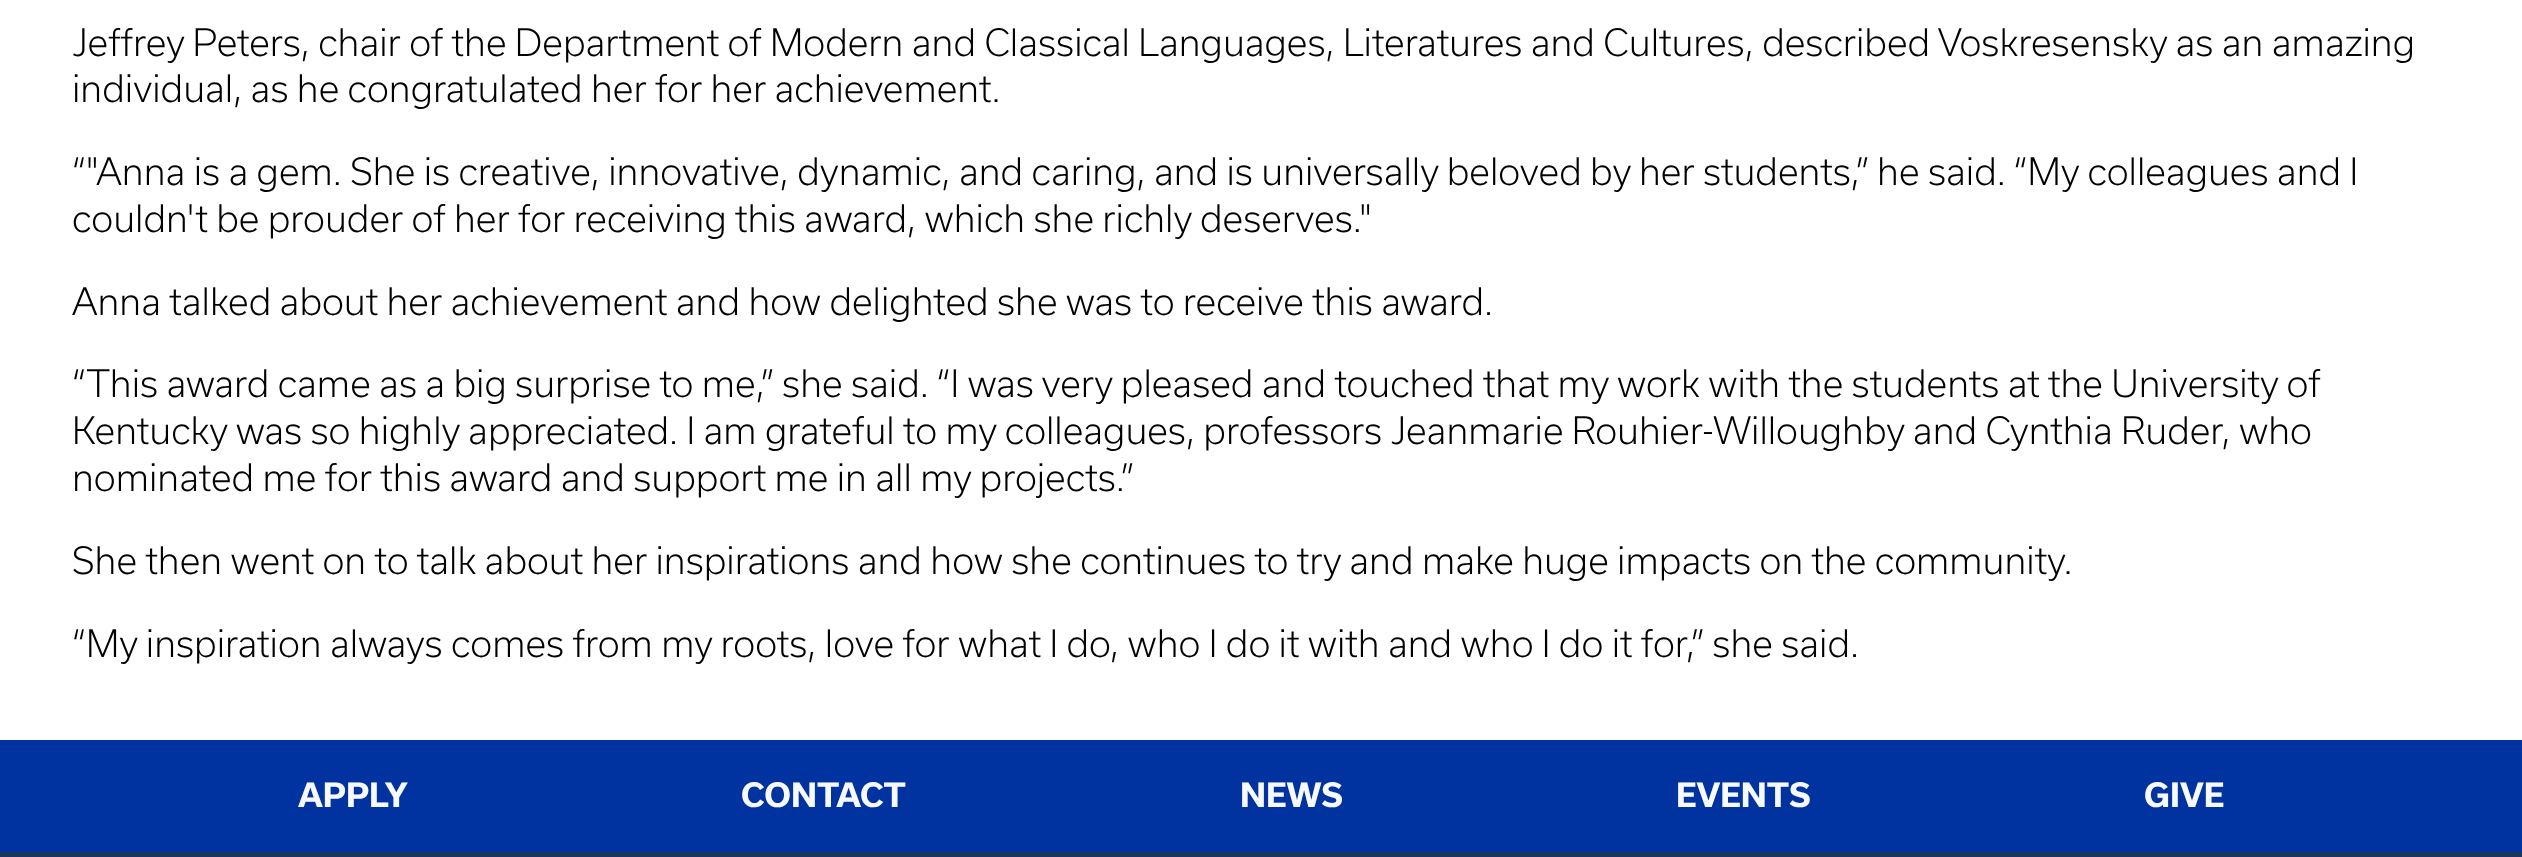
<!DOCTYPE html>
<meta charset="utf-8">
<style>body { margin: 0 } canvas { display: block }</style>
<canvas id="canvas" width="2522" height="857"></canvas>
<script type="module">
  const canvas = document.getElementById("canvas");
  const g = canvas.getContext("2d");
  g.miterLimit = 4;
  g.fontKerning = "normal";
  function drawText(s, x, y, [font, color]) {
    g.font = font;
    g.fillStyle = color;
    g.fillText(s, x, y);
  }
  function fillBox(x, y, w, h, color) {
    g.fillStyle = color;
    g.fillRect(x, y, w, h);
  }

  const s1 = ["300 36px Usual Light", "#000000"];
  const s2 = ["bold 32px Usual", "#F8F9FA"];

  fillBox(0, 0, 2522, 857, "#FFFFFF");
  drawText("Jeffrey Peters, chair of the Department of Modern and Classical Languages, Literatures and Cultures, described Voskresensky as an amazing", 72, 56, s1);
  drawText("individual, as he congratulated her for her achievement.", 72, 102, s1);
  drawText("“\"Anna is a gem. She is creative, innovative, dynamic, and caring, and is universally beloved by her students,” he said. “My colleagues and I", 72, 185, s1);
  drawText("couldn't be prouder of her for receiving this award, which she richly deserves.\"", 72, 232, s1);
  drawText("Anna talked about her achievement and how delighted she was to receive this award.", 72, 315, s1);
  drawText("“This award came as a big surprise to me,” she said. “I was very pleased and touched that my work with the students at the University of", 72, 397, s1);
  drawText("Kentucky was so highly appreciated. I am grateful to my colleagues, professors Jeanmarie Rouhier-Willoughby and Cynthia Ruder, who", 72, 444, s1);
  drawText("nominated me for this award and support me in all my projects.”", 72, 491, s1);
  drawText("She then went on to talk about her inspirations and how she continues to try and make huge impacts on the community.", 72, 574, s1);
  drawText("“My inspiration always comes from my roots, love for what I do, who I do it with and who I do it for,” she said.", 72, 657, s1);
  fillBox(0, 852, 2522, 5, "#1B365D");
  fillBox(0, 740, 2522, 112, "#0033A0");
  drawText("APPLY", 298, 807, s2);
  drawText("CONTACT", 741, 807, s2);
  drawText("NEWS", 1240, 807, s2);
  drawText("EVENTS", 1676, 807, s2);
  drawText("GIVE", 2144, 807, s2);
</script>
